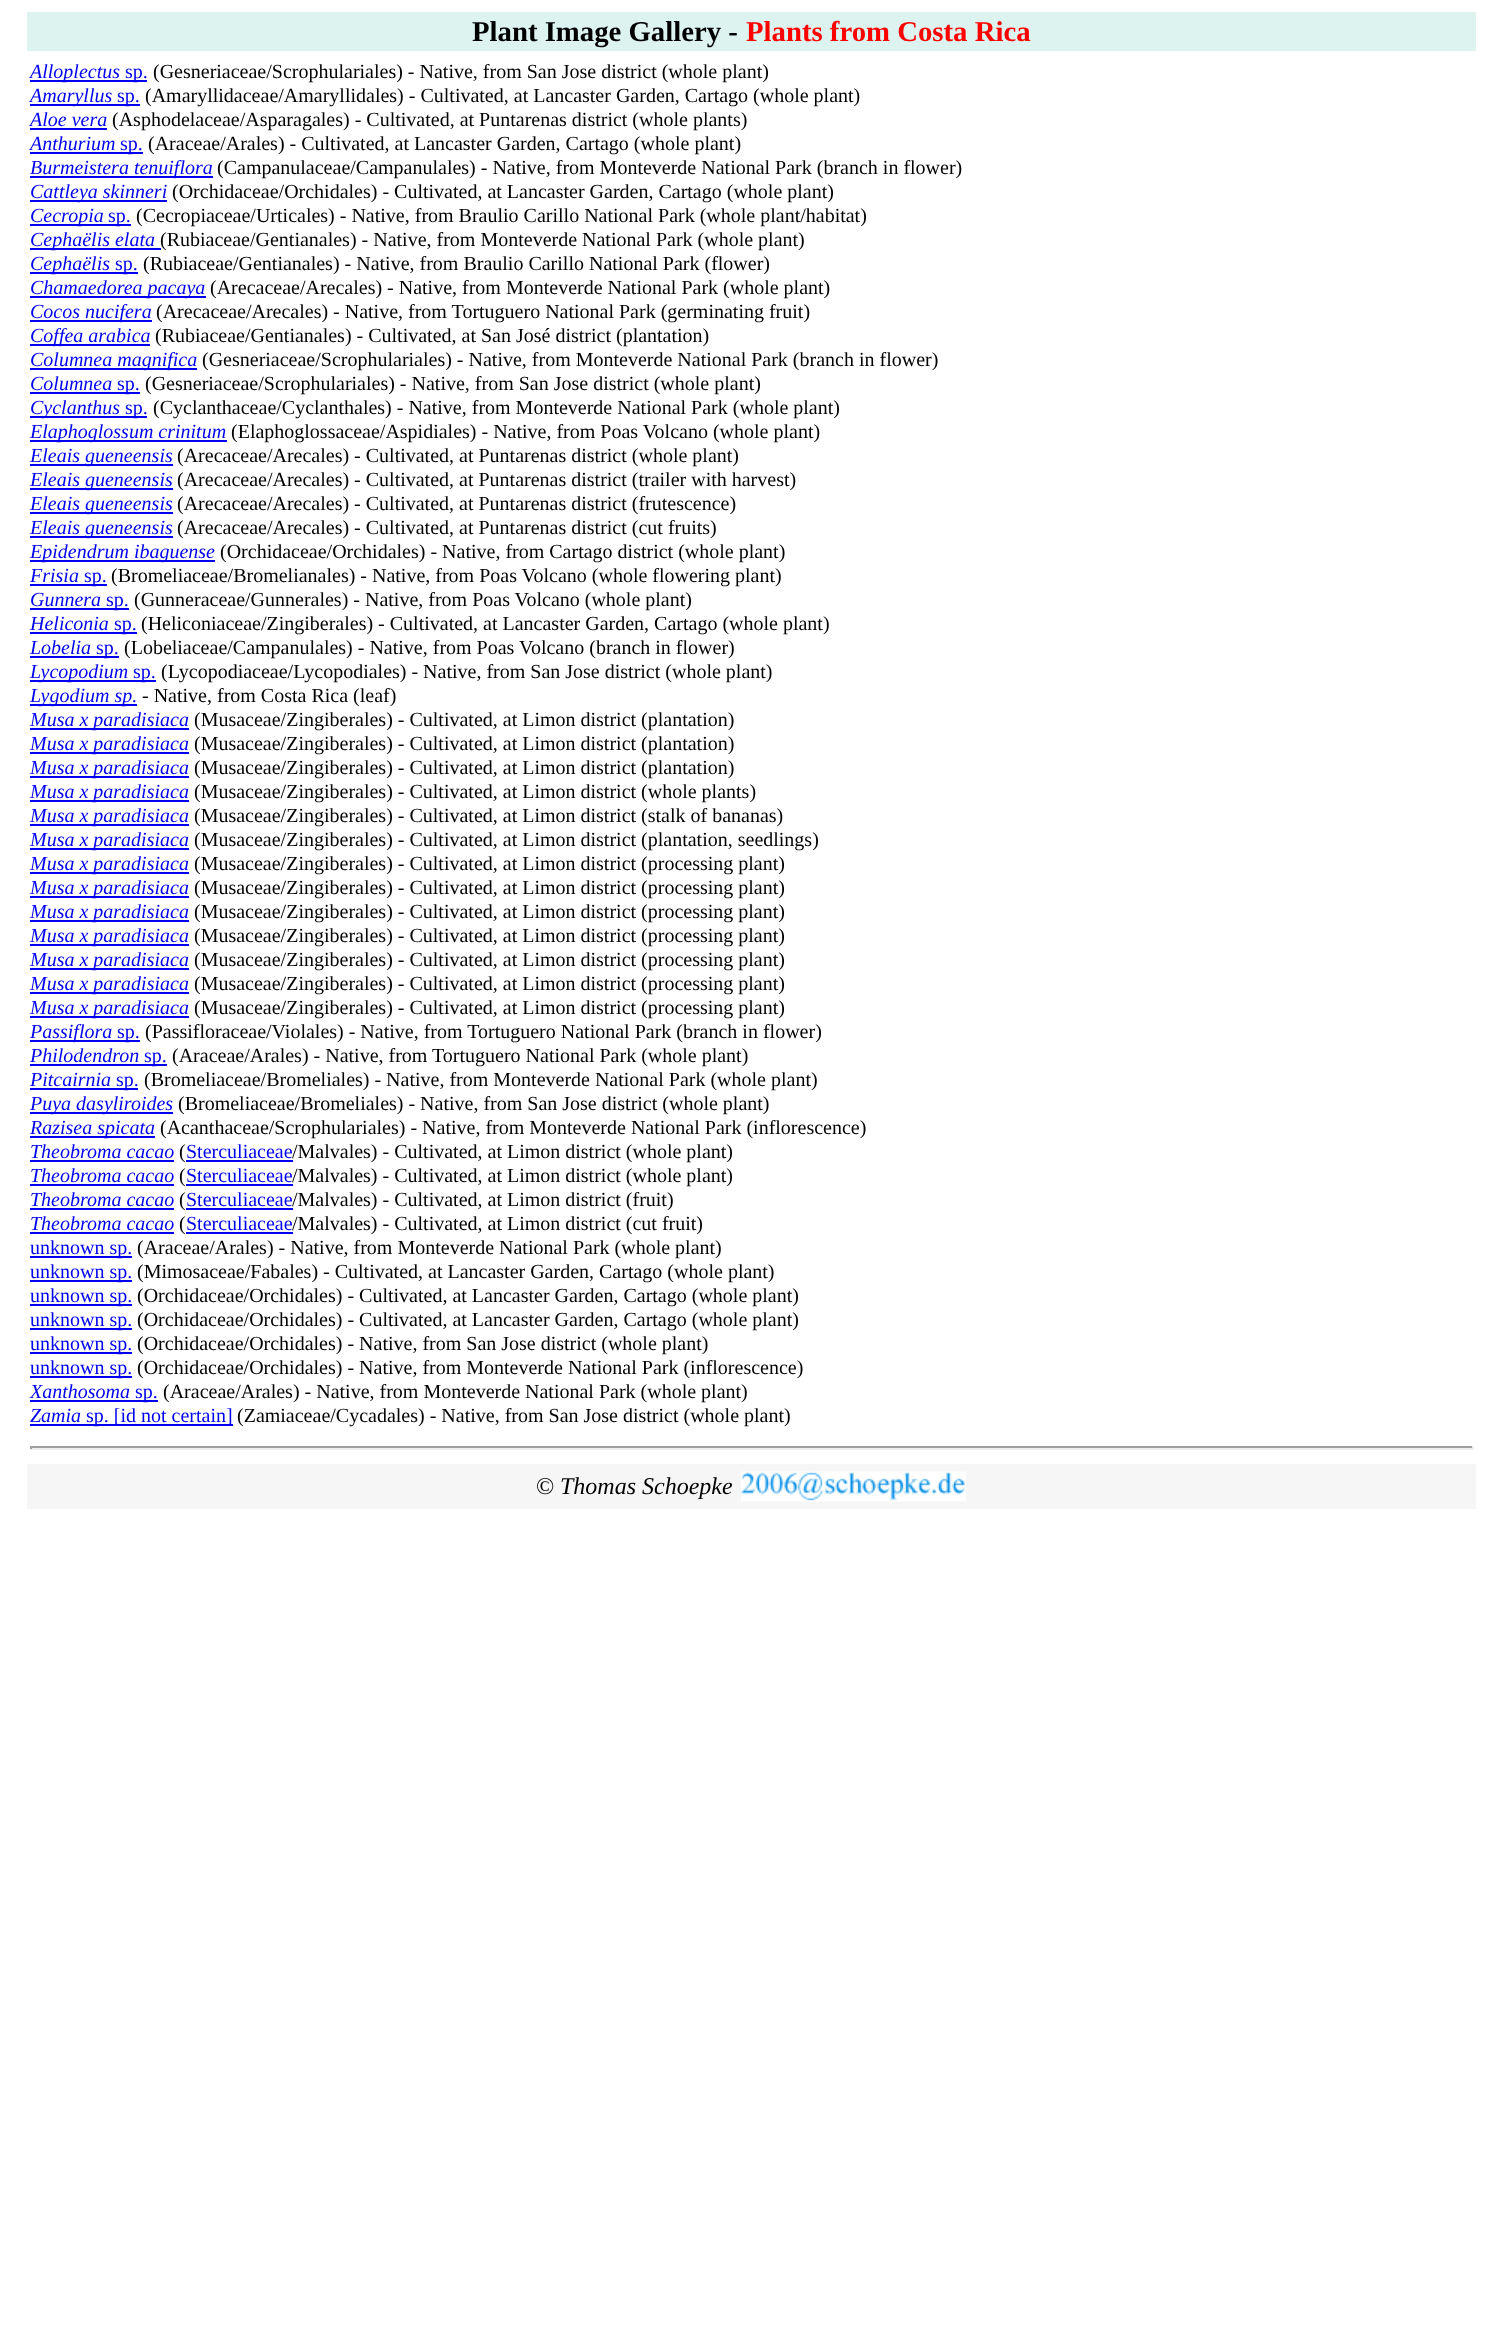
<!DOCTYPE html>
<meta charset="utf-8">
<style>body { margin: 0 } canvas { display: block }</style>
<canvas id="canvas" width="1503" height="2349"></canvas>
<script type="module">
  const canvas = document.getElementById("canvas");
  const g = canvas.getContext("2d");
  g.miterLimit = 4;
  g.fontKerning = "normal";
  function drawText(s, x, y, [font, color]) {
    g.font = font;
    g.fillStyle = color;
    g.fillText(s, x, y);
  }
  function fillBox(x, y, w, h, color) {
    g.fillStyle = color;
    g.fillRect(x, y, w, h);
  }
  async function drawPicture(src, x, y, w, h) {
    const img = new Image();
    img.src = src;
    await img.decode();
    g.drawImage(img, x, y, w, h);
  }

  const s1 = ["bold 28.75px Liberation Serif", "#000000"];
  const s2 = ["bold 28.75px Liberation Serif", "#FF0000"];
  const s3 = ["italic 20px Liberation Serif", "#0000EE"];
  const s4 = ["20px Liberation Serif", "#0000EE"];
  const s5 = ["20px Liberation Serif", "#000000"];
  const s6 = ["24px Liberation Serif", "#000000"];
  const s7 = ["italic 24px Liberation Serif", "#000000"];

  fillBox(0, 0, 1503, 2349, "#FFFFFF");
  fillBox(27, 12, 1449, 39, "#DCF3F0");
  drawText("Plant Image Gallery -", 472, 41, s1);
  drawText("Plants from Costa Rica", 746, 41, s2);
  fillBox(30, 80, 117, 2, "#0000EE");
  drawText("Alloplectus", 30, 78, s3);
  drawText("sp.", 125, 78, s4);
  drawText("(Gesneriaceae/Scrophulariales) - Native, from San Jose district (whole plant)", 153, 78, s5);
  fillBox(30, 104, 110, 2, "#0000EE");
  drawText("Amaryllus", 30, 102, s3);
  drawText("sp.", 117, 102, s4);
  drawText("(Amaryllidaceae/Amaryllidales) - Cultivated, at Lancaster Garden, Cartago (whole plant)", 145, 102, s5);
  drawText("Aloe vera", 30, 126, s3);
  fillBox(30, 128, 77, 2, "#0000EE");
  drawText("(Asphodelaceae/Asparagales) - Cultivated, at Puntarenas district (whole plants)", 112, 126, s5);
  drawText("Anthurium", 30, 150, s3);
  fillBox(30, 152, 113, 2, "#0000EE");
  drawText("sp.", 120, 150, s4);
  drawText("(Araceae/Arales) - Cultivated, at Lancaster Garden, Cartago (whole plant)", 148, 150, s5);
  fillBox(30, 176, 183, 2, "#0000EE");
  drawText("Burmeistera tenuiflora", 30, 174, s3);
  drawText("(Campanulaceae/Campanulales) - Native, from Monteverde National Park (branch in flower)", 217, 174, s5);
  fillBox(30, 200, 137, 2, "#0000EE");
  drawText("Cattleya skinneri", 30, 198, s3);
  drawText("(Orchidaceae/Orchidales) - Cultivated, at Lancaster Garden, Cartago (whole plant)", 172, 198, s5);
  fillBox(30, 224, 101, 2, "#0000EE");
  drawText("Cecropia", 30, 222, s3);
  drawText("sp.", 108, 222, s4);
  drawText("(Cecropiaceae/Urticales) - Native, from Braulio Carillo National Park (whole plant/habitat)", 136, 222, s5);
  fillBox(30, 248, 131, 2, "#0000EE");
  drawText("Cephaëlis elata", 30, 246, s3);
  drawText("(Rubiaceae/Gentianales) - Native, from Monteverde National Park (whole plant)", 160, 246, s5);
  fillBox(30, 272, 108, 2, "#0000EE");
  drawText("Cephaëlis", 30, 270, s3);
  drawText("sp.", 115, 270, s4);
  drawText("(Rubiaceae/Gentianales) - Native, from Braulio Carillo National Park (flower)", 143, 270, s5);
  fillBox(30, 296, 176, 2, "#0000EE");
  drawText("Chamaedorea pacaya", 30, 294, s3);
  drawText("(Arecaceae/Arecales) - Native, from Monteverde National Park (whole plant)", 210, 294, s5);
  fillBox(30, 320, 122, 2, "#0000EE");
  drawText("Cocos nucifera", 30, 318, s3);
  drawText("(Arecaceae/Arecales) - Native, from Tortuguero National Park (germinating fruit)", 156, 318, s5);
  fillBox(30, 344, 120, 2, "#0000EE");
  drawText("Coffea arabica", 30, 342, s3);
  drawText("(Rubiaceae/Gentianales) - Cultivated, at San José district (plantation)", 155, 342, s5);
  fillBox(30, 368, 167, 2, "#0000EE");
  drawText("Columnea magnifica", 30, 366, s3);
  drawText("(Gesneriaceae/Scrophulariales) - Native, from Monteverde National Park (branch in flower)", 202, 366, s5);
  drawText("Columnea", 30, 390, s3);
  fillBox(30, 392, 110, 2, "#0000EE");
  drawText("sp.", 117, 390, s4);
  drawText("(Gesneriaceae/Scrophulariales) - Native, from San Jose district (whole plant)", 145, 390, s5);
  fillBox(30, 416, 117, 2, "#0000EE");
  drawText("Cyclanthus", 30, 414, s3);
  drawText("sp.", 125, 414, s4);
  drawText("(Cyclanthaceae/Cyclanthales) - Native, from Monteverde National Park (whole plant)", 153, 414, s5);
  fillBox(30, 440, 197, 2, "#0000EE");
  drawText("Elaphoglossum crinitum", 30, 438, s3);
  drawText("(Elaphoglossaceae/Aspidiales) - Native, from Poas Volcano (whole plant)", 231, 438, s5);
  fillBox(30, 464, 143, 2, "#0000EE");
  drawText("Eleais gueneensis", 30, 462, s3);
  drawText("(Arecaceae/Arecales) - Cultivated, at Puntarenas district (whole plant)", 177, 462, s5);
  fillBox(30, 488, 143, 2, "#0000EE");
  drawText("Eleais gueneensis", 30, 486, s3);
  drawText("(Arecaceae/Arecales) - Cultivated, at Puntarenas district (trailer with harvest)", 177, 486, s5);
  fillBox(30, 512, 143, 2, "#0000EE");
  drawText("Eleais gueneensis", 30, 510, s3);
  drawText("(Arecaceae/Arecales) - Cultivated, at Puntarenas district (frutescence)", 177, 510, s5);
  fillBox(30, 536, 143, 2, "#0000EE");
  drawText("Eleais gueneensis", 30, 534, s3);
  drawText("(Arecaceae/Arecales) - Cultivated, at Puntarenas district (cut fruits)", 177, 534, s5);
  fillBox(30, 560, 185, 2, "#0000EE");
  drawText("Epidendrum ibaguense", 30, 558, s3);
  drawText("(Orchidaceae/Orchidales) - Native, from Cartago district (whole plant)", 220, 558, s5);
  drawText("Frisia", 30, 582, s3);
  fillBox(30, 584, 77, 2, "#0000EE");
  drawText("sp.", 84, 582, s4);
  drawText("(Bromeliaceae/Bromelianales) - Native, from Poas Volcano (whole flowering plant)", 111, 582, s5);
  drawText("Gunnera", 30, 606, s3);
  fillBox(30, 608, 99, 2, "#0000EE");
  drawText("sp.", 106, 606, s4);
  drawText("(Gunneraceae/Gunnerales) - Native, from Poas Volcano (whole plant)", 134, 606, s5);
  drawText("Heliconia", 30, 630, s3);
  fillBox(30, 632, 107, 2, "#0000EE");
  drawText("sp.", 114, 630, s4);
  drawText("(Heliconiaceae/Zingiberales) - Cultivated, at Lancaster Garden, Cartago (whole plant)", 141, 630, s5);
  drawText("Lobelia", 30, 654, s3);
  fillBox(30, 656, 89, 2, "#0000EE");
  drawText("sp.", 96, 654, s4);
  drawText("(Lobeliaceae/Campanulales) - Native, from Poas Volcano (branch in flower)", 124, 654, s5);
  fillBox(30, 680, 126, 2, "#0000EE");
  drawText("Lycopodium", 30, 678, s3);
  drawText("sp.", 133, 678, s4);
  drawText("(Lycopodiaceae/Lycopodiales) - Native, from San Jose district (whole plant)", 161, 678, s5);
  fillBox(30, 704, 107, 2, "#0000EE");
  drawText("Lygodium sp.", 30, 702, s3);
  drawText("- Native, from Costa Rica (leaf)", 142, 702, s5);
  fillBox(30, 728, 159, 2, "#0000EE");
  drawText("Musa x paradisiaca", 30, 726, s3);
  drawText("(Musaceae/Zingiberales) - Cultivated, at Limon district (plantation)", 194, 726, s5);
  fillBox(30, 752, 159, 2, "#0000EE");
  drawText("Musa x paradisiaca", 30, 750, s3);
  drawText("(Musaceae/Zingiberales) - Cultivated, at Limon district (plantation)", 194, 750, s5);
  fillBox(30, 776, 159, 2, "#0000EE");
  drawText("Musa x paradisiaca", 30, 774, s3);
  drawText("(Musaceae/Zingiberales) - Cultivated, at Limon district (plantation)", 194, 774, s5);
  fillBox(30, 800, 159, 2, "#0000EE");
  drawText("Musa x paradisiaca", 30, 798, s3);
  drawText("(Musaceae/Zingiberales) - Cultivated, at Limon district (whole plants)", 194, 798, s5);
  fillBox(30, 824, 159, 2, "#0000EE");
  drawText("Musa x paradisiaca", 30, 822, s3);
  drawText("(Musaceae/Zingiberales) - Cultivated, at Limon district (stalk of bananas)", 194, 822, s5);
  fillBox(30, 848, 159, 2, "#0000EE");
  drawText("Musa x paradisiaca", 30, 846, s3);
  drawText("(Musaceae/Zingiberales) - Cultivated, at Limon district (plantation, seedlings)", 194, 846, s5);
  fillBox(30, 872, 159, 2, "#0000EE");
  drawText("Musa x paradisiaca", 30, 870, s3);
  drawText("(Musaceae/Zingiberales) - Cultivated, at Limon district (processing plant)", 194, 870, s5);
  fillBox(30, 896, 159, 2, "#0000EE");
  drawText("Musa x paradisiaca", 30, 894, s3);
  drawText("(Musaceae/Zingiberales) - Cultivated, at Limon district (processing plant)", 194, 894, s5);
  fillBox(30, 920, 159, 2, "#0000EE");
  drawText("Musa x paradisiaca", 30, 918, s3);
  drawText("(Musaceae/Zingiberales) - Cultivated, at Limon district (processing plant)", 194, 918, s5);
  fillBox(30, 944, 159, 2, "#0000EE");
  drawText("Musa x paradisiaca", 30, 942, s3);
  drawText("(Musaceae/Zingiberales) - Cultivated, at Limon district (processing plant)", 194, 942, s5);
  fillBox(30, 968, 159, 2, "#0000EE");
  drawText("Musa x paradisiaca", 30, 966, s3);
  drawText("(Musaceae/Zingiberales) - Cultivated, at Limon district (processing plant)", 194, 966, s5);
  fillBox(30, 992, 159, 2, "#0000EE");
  drawText("Musa x paradisiaca", 30, 990, s3);
  drawText("(Musaceae/Zingiberales) - Cultivated, at Limon district (processing plant)", 194, 990, s5);
  fillBox(30, 1016, 159, 2, "#0000EE");
  drawText("Musa x paradisiaca", 30, 1014, s3);
  drawText("(Musaceae/Zingiberales) - Cultivated, at Limon district (processing plant)", 194, 1014, s5);
  fillBox(30, 1040, 110, 2, "#0000EE");
  drawText("Passiflora", 30, 1038, s3);
  drawText("sp.", 117, 1038, s4);
  drawText("(Passifloraceae/Violales) - Native, from Tortuguero National Park (branch in flower)", 145, 1038, s5);
  drawText("Philodendron", 30, 1062, s3);
  fillBox(30, 1064, 137, 2, "#0000EE");
  drawText("sp.", 144, 1062, s4);
  drawText("(Araceae/Arales) - Native, from Tortuguero National Park (whole plant)", 172, 1062, s5);
  drawText("Pitcairnia", 30, 1086, s3);
  fillBox(30, 1088, 108, 2, "#0000EE");
  drawText("sp.", 116, 1086, s4);
  drawText("(Bromeliaceae/Bromeliales) - Native, from Monteverde National Park (whole plant)", 144, 1086, s5);
  fillBox(30, 1112, 143, 2, "#0000EE");
  drawText("Puya dasyliroides", 30, 1110, s3);
  drawText("(Bromeliaceae/Bromeliales) - Native, from San Jose district (whole plant)", 178, 1110, s5);
  fillBox(30, 1136, 125, 2, "#0000EE");
  drawText("Razisea spicata", 30, 1134, s3);
  drawText("(Acanthaceae/Scrophulariales) - Native, from Monteverde National Park (inflorescence)", 160, 1134, s5);
  drawText("Theobroma cacao", 30, 1158, s3);
  fillBox(30, 1160, 144, 2, "#0000EE");
  drawText("(", 179, 1158, s5);
  drawText("Sterculiaceae", 186, 1158, s4);
  fillBox(186, 1160, 107, 2, "#0000EE");
  drawText("/Malvales) - Cultivated, at Limon district (whole plant)", 292, 1158, s5);
  drawText("Theobroma cacao", 30, 1182, s3);
  fillBox(30, 1184, 144, 2, "#0000EE");
  drawText("(", 179, 1182, s5);
  drawText("Sterculiaceae", 186, 1182, s4);
  fillBox(186, 1184, 107, 2, "#0000EE");
  drawText("/Malvales) - Cultivated, at Limon district (whole plant)", 292, 1182, s5);
  drawText("Theobroma cacao", 30, 1206, s3);
  fillBox(30, 1208, 144, 2, "#0000EE");
  drawText("(", 179, 1206, s5);
  fillBox(186, 1208, 107, 2, "#0000EE");
  drawText("Sterculiaceae", 186, 1206, s4);
  drawText("/Malvales) - Cultivated, at Limon district (fruit)", 292, 1206, s5);
  drawText("Theobroma cacao", 30, 1230, s3);
  fillBox(30, 1232, 144, 2, "#0000EE");
  drawText("(", 179, 1230, s5);
  fillBox(186, 1232, 107, 2, "#0000EE");
  drawText("Sterculiaceae", 186, 1230, s4);
  drawText("/Malvales) - Cultivated, at Limon district (cut fruit)", 292, 1230, s5);
  fillBox(30, 1256, 102, 2, "#0000EE");
  drawText("unknown sp.", 30, 1254, s4);
  drawText("(Araceae/Arales) - Native, from Monteverde National Park (whole plant)", 137, 1254, s5);
  fillBox(30, 1280, 102, 2, "#0000EE");
  drawText("unknown sp.", 30, 1278, s4);
  drawText("(Mimosaceae/Fabales) - Cultivated, at Lancaster Garden, Cartago (whole plant)", 137, 1278, s5);
  fillBox(30, 1304, 102, 2, "#0000EE");
  drawText("unknown sp.", 30, 1302, s4);
  drawText("(Orchidaceae/Orchidales) - Cultivated, at Lancaster Garden, Cartago (whole plant)", 137, 1302, s5);
  fillBox(30, 1328, 102, 2, "#0000EE");
  drawText("unknown sp.", 30, 1326, s4);
  drawText("(Orchidaceae/Orchidales) - Cultivated, at Lancaster Garden, Cartago (whole plant)", 137, 1326, s5);
  fillBox(30, 1352, 102, 2, "#0000EE");
  drawText("unknown sp.", 30, 1350, s4);
  drawText("(Orchidaceae/Orchidales) - Native, from San Jose district (whole plant)", 137, 1350, s5);
  fillBox(30, 1376, 102, 2, "#0000EE");
  drawText("unknown sp.", 30, 1374, s4);
  drawText("(Orchidaceae/Orchidales) - Native, from Monteverde National Park (inflorescence)", 137, 1374, s5);
  drawText("Xanthosoma", 30, 1398, s3);
  fillBox(30, 1400, 128, 2, "#0000EE");
  drawText("sp.", 135, 1398, s4);
  drawText("(Araceae/Arales) - Native, from Monteverde National Park (whole plant)", 163, 1398, s5);
  drawText("Zamia", 30, 1422, s3);
  fillBox(30, 1424, 203, 2, "#0000EE");
  drawText("sp. [id not certain]", 86, 1422, s4);
  drawText("(Zamiaceae/Cycadales) - Native, from San Jose district (whole plant)", 237, 1422, s5);
  fillBox(30, 1446, 1443, 2, "#9F9F9F");
  fillBox(1472, 1446, 2, 3, "#EEEEEE");
  fillBox(30, 1448, 1443, 2, "#EEEEEE");
  fillBox(30, 1446, 2, 3, "#9F9F9F");
  fillBox(27, 1464, 1449, 45, "#F6F6F6");
  drawText("©", 536, 1494, s6);
  drawText("Thomas Schoepke", 560, 1494, s7);
  await drawPicture("pic1.png", 741, 1471, 225, 31);
</script>
